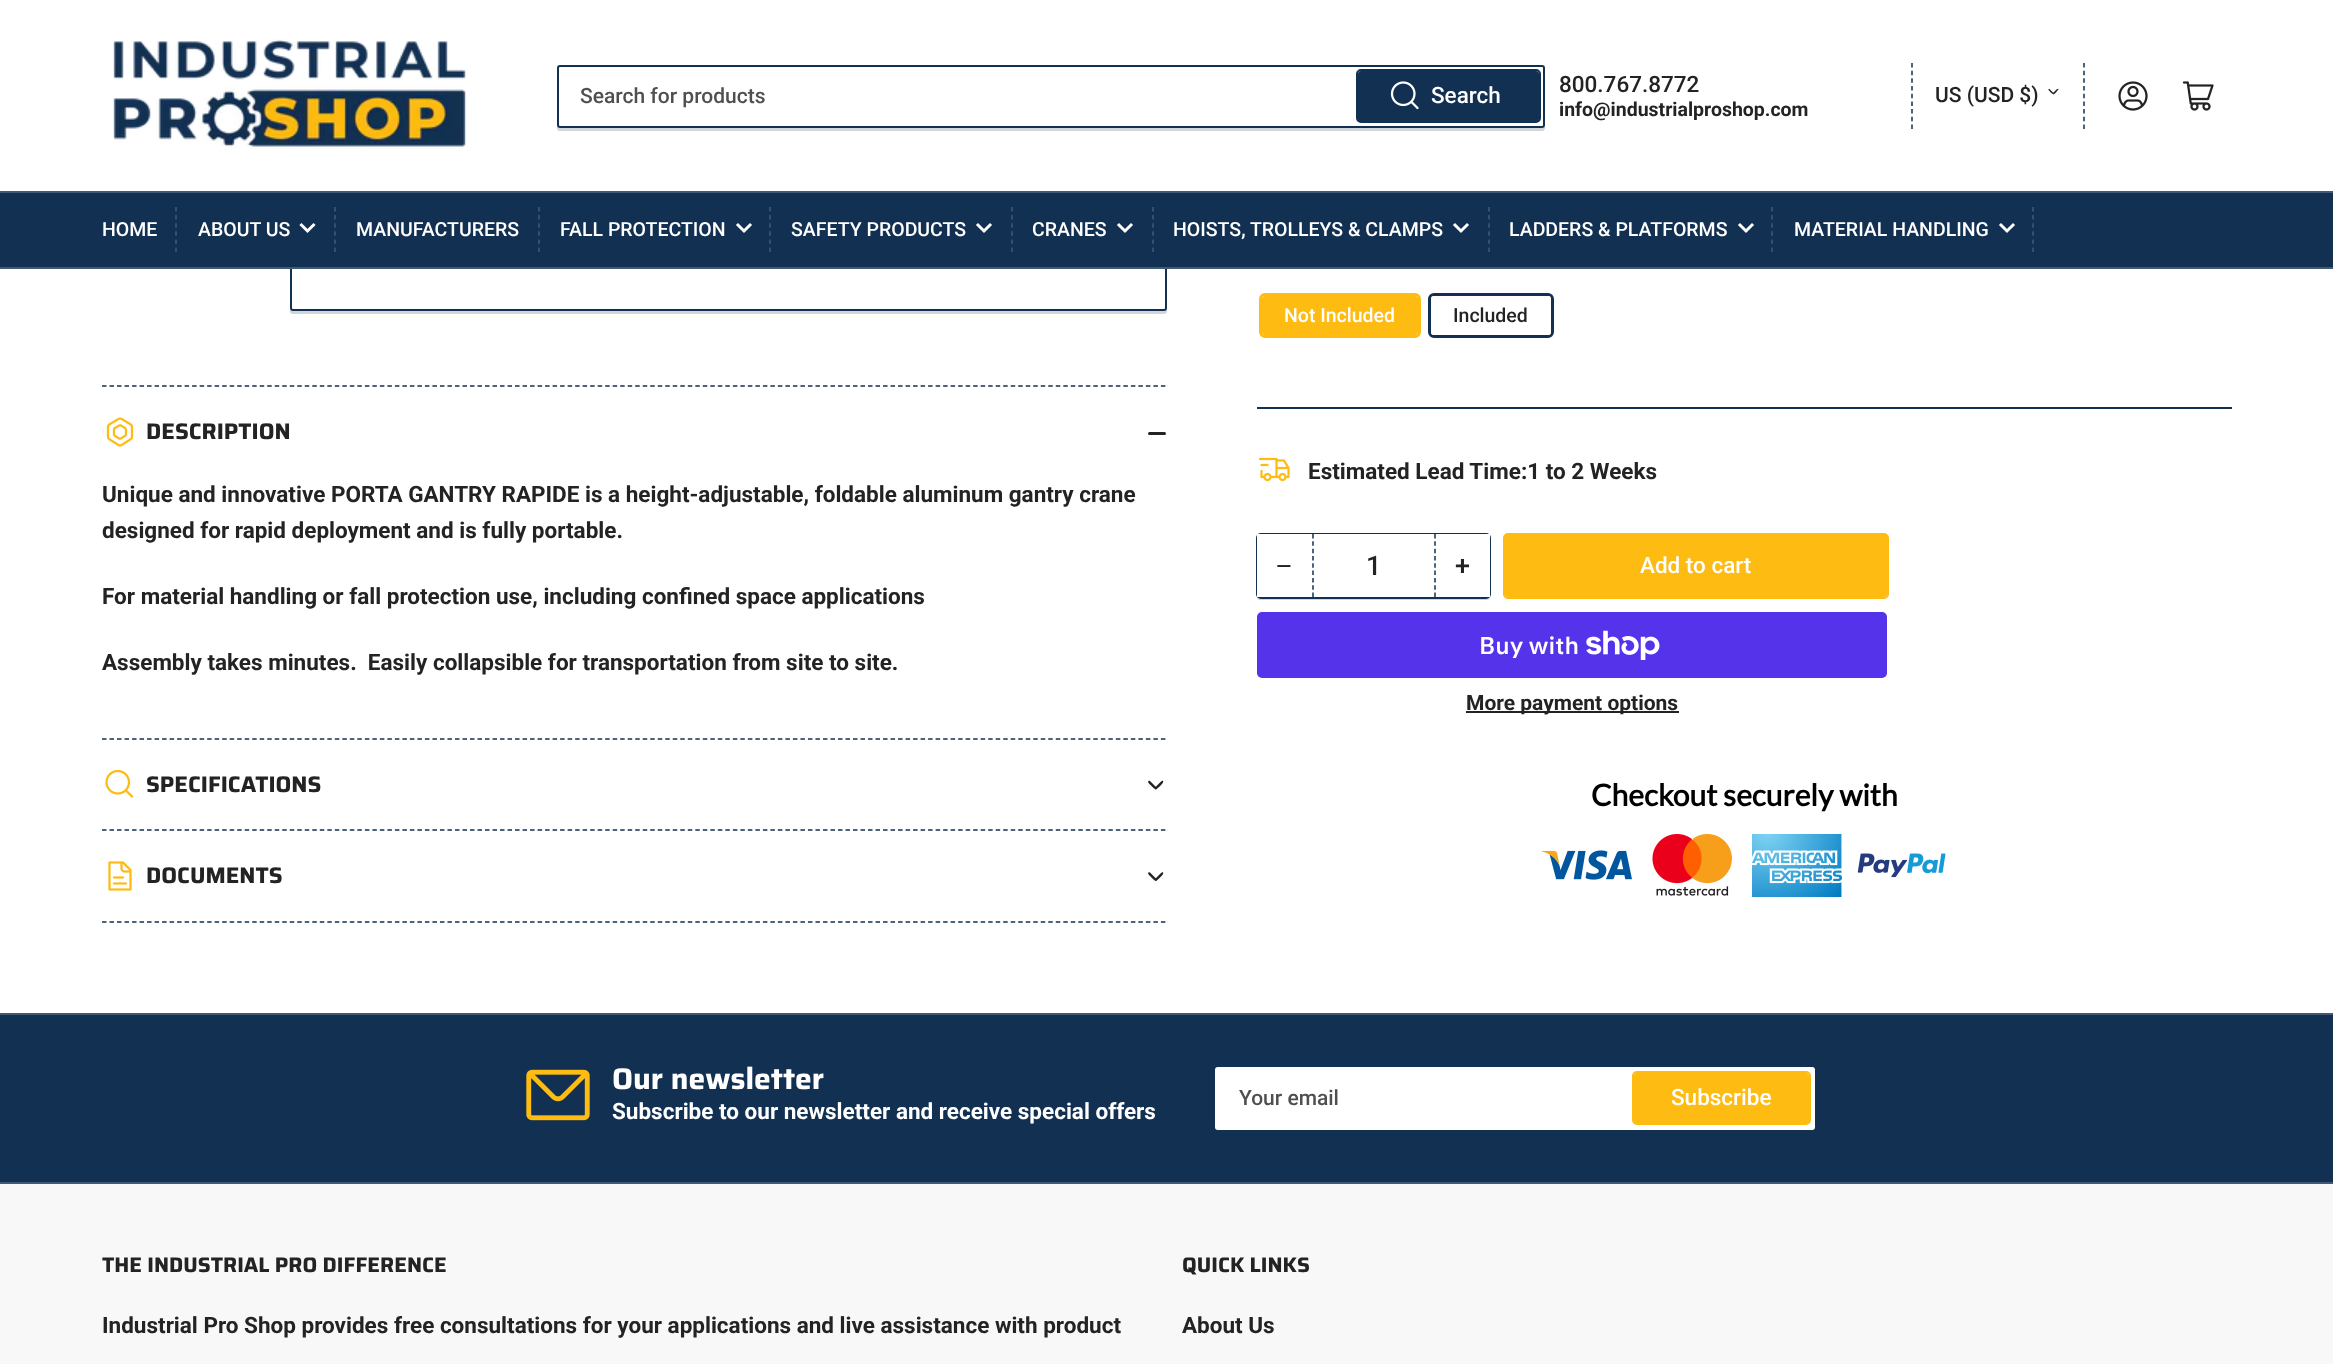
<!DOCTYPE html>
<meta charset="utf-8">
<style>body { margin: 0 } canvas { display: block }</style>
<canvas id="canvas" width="2333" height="1364"></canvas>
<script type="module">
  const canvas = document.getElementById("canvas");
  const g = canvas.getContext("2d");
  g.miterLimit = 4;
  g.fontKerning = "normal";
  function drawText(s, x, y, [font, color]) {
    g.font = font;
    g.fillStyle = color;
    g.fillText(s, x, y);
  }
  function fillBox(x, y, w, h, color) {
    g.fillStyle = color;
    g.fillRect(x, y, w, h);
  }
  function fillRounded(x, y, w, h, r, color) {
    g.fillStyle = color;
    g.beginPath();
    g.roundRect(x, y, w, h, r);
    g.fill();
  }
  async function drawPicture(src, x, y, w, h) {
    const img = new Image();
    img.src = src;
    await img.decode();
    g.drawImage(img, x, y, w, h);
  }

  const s1 = ["500 21px Roboto", "#4F4F4F"];
  const s2 = ["500 22.5px Roboto", "#FFFFFF"];
  const s3 = ["500 22.5px Roboto", "#232323"];
  const s4 = ["bold 19.5px Roboto", "#232323"];
  const s5 = ["500 21px Roboto", "#232323"];
  const s6 = ["500 19.5px Roboto", "#FFFFFF"];
  const s7 = ["bold 22.5px Saira", "#232323"];
  const s8 = ["bold 22.5px Roboto", "#232323"];
  const s9 = ["500 19.5px Roboto", "#232323"];
  const s10 = ["27px Liberation Sans", "#232323"];
  const s11 = ["500 27px Roboto", "#232323"];
  const s12 = ["600 24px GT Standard", "#FFFFFF"];
  const s13 = ["bold 21px Roboto", "#232323"];
  const s14 = ["bold 30px Lato", "#000000"];
  const s15 = ["bold 30px Saira", "#FFFFFF"];
  const s16 = ["bold 22.5px Roboto", "#FFFFFF"];
  const s17 = ["bold 21px Saira", "#232323"];

  fillBox(0, 0, 2333, 1364, "#FFFFFF");
  g.fillStyle = "#D0D6DC";
  g.beginPath();
  g.moveTo(290, 309);
  g.lineTo(290, 311);
  g.bezierCurveTo(290, 313, 291, 314, 293, 314);
  g.lineTo(1164, 314);
  g.bezierCurveTo(1166, 314, 1167, 313, 1167, 311);
  g.lineTo(1167, 308);
  g.bezierCurveTo(1167, 309, 1166, 310, 1164, 310);
  g.lineTo(292, 310);
  g.bezierCurveTo(291, 310, 291, 310, 290, 309);
  g.closePath();
  g.fill();
  g.fillStyle = "#FFFFFF";
  g.beginPath();
  g.roundRect(291, -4, 875, 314, 2);
  g.fill();
  g.strokeStyle = "#123052";
  g.lineWidth = 2;
  g.stroke();
  fillBox(290, 0, 877, 191, "#FFFFFF");
  await drawPicture("pic1.png", 113, 39, 353, 111);
  g.fillStyle = "#D0D6DC";
  g.beginPath();
  g.moveTo(557, 126);
  g.lineTo(557, 128);
  g.bezierCurveTo(557, 130, 558, 131, 560, 131);
  g.lineTo(1542, 131);
  g.bezierCurveTo(1544, 131, 1545, 130, 1545, 128);
  g.lineTo(1545, 124);
  g.bezierCurveTo(1545, 126, 1544, 128, 1542, 128);
  g.lineTo(560, 128);
  g.bezierCurveTo(558, 128, 558, 127, 557, 126);
  g.closePath();
  g.fill();
  g.fillStyle = "#FFFFFF";
  g.beginPath();
  g.roundRect(558, 66, 986, 61, 2);
  g.fill();
  g.stroke();
  drawText("Search for products", 580, 103, s1);
  g.beginPath();
  g.roundRect(1357, 70, 183, 52, 4);
  g.stroke();
  fillRounded(1358, 71, 181, 51, 3, "#123052");
  await drawPicture("pic2.png", 1390, 81, 29, 29);
  drawText("Search", 1431, 103, s2);
  drawText("800.767.8772", 1559, 92, s3);
  drawText("info@industrialproshop.com", 1559, 116, s4);
  g.beginPath();
  g.moveTo(2084, 63);
  g.lineTo(2084, 129);
  g.lineWidth = 1.5;
  g.setLineDash([4.5, 3.18]);
  g.stroke();
  g.beginPath();
  g.moveTo(1912, 63);
  g.lineTo(1912, 129);
  g.stroke();
  drawText("US (USD $)", 1935, 102, s5);
  g.beginPath();
  g.moveTo(2049.5, 89);
  g.lineTo(2053, 92.5);
  g.bezierCurveTo(2055, 94, 2054, 95, 2052, 93.5);
  g.bezierCurveTo(2051.5, 93, 2047.5, 89.5, 2048.5, 89);
  g.closePath();
  g.fill();
  g.beginPath();
  g.moveTo(2053, 93);
  g.lineTo(2056.5, 89.5);
  g.bezierCurveTo(2058.5, 88, 2059.5, 89, 2057.5, 90.5);
  g.bezierCurveTo(2057, 91, 2054, 95.5, 2053, 94);
  g.closePath();
  g.fill();
  await drawPicture("pic3.png", 2118, 81, 30, 30);
  await drawPicture("pic4.png", 2182, 81, 32, 30);
  fillBox(0, 193, 2333, 74, "#123052");
  fillBox(0, 191, 2333, 2, "#415975");
  fillBox(0, 267, 2333, 2, "#415975");
  drawText("HOME", 102, 236, s6);
  g.beginPath();
  g.moveTo(176, 207);
  g.lineTo(176, 252);
  g.strokeStyle = "#415975";
  g.setLineDash([4.5, 3.6]);
  g.stroke();
  drawText("ABOUT US", 198, 236, s6);
  g.beginPath();
  g.moveTo(313.5, 225);
  g.lineTo(307.5, 231);
  g.lineTo(301.5, 225);
  g.strokeStyle = "#FFFFFF";
  g.lineWidth = 3;
  g.lineCap = "square";
  g.setLineDash([]);
  g.stroke();
  g.beginPath();
  g.moveTo(335, 207);
  g.lineTo(335, 252);
  g.strokeStyle = "#415975";
  g.lineWidth = 1.5;
  g.lineCap = "butt";
  g.setLineDash([4.5, 3.6]);
  g.stroke();
  drawText("MANUFACTURERS", 356, 236, s6);
  g.beginPath();
  g.moveTo(539, 207);
  g.lineTo(539, 252);
  g.stroke();
  drawText("FALL PROTECTION", 560, 236, s6);
  g.beginPath();
  g.moveTo(750, 225);
  g.lineTo(744, 231);
  g.lineTo(738, 225);
  g.strokeStyle = "#FFFFFF";
  g.lineWidth = 3;
  g.lineCap = "square";
  g.setLineDash([]);
  g.stroke();
  g.beginPath();
  g.moveTo(770, 207);
  g.lineTo(770, 252);
  g.strokeStyle = "#415975";
  g.lineWidth = 1.5;
  g.lineCap = "butt";
  g.setLineDash([4.5, 3.6]);
  g.stroke();
  drawText("SAFETY PRODUCTS", 791, 236, s6);
  g.beginPath();
  g.moveTo(990, 225);
  g.lineTo(984, 231);
  g.lineTo(978, 225);
  g.strokeStyle = "#FFFFFF";
  g.lineWidth = 3;
  g.lineCap = "square";
  g.setLineDash([]);
  g.stroke();
  g.beginPath();
  g.moveTo(1012, 207);
  g.lineTo(1012, 252);
  g.strokeStyle = "#415975";
  g.lineWidth = 1.5;
  g.lineCap = "butt";
  g.setLineDash([4.5, 3.6]);
  g.stroke();
  drawText("CRANES", 1032, 236, s6);
  g.beginPath();
  g.moveTo(1131, 225);
  g.lineTo(1125, 231);
  g.lineTo(1119, 225);
  g.strokeStyle = "#FFFFFF";
  g.lineWidth = 3;
  g.lineCap = "square";
  g.setLineDash([]);
  g.stroke();
  g.beginPath();
  g.moveTo(1153, 207);
  g.lineTo(1153, 252);
  g.strokeStyle = "#415975";
  g.lineWidth = 1.5;
  g.lineCap = "butt";
  g.setLineDash([4.5, 3.6]);
  g.stroke();
  drawText("HOISTS, TROLLEYS & CLAMPS", 1173, 236, s6);
  g.beginPath();
  g.moveTo(1467, 225);
  g.lineTo(1461, 231);
  g.lineTo(1455, 225);
  g.strokeStyle = "#FFFFFF";
  g.lineWidth = 3;
  g.lineCap = "square";
  g.setLineDash([]);
  g.stroke();
  g.beginPath();
  g.moveTo(1489, 207);
  g.lineTo(1489, 252);
  g.strokeStyle = "#415975";
  g.lineWidth = 1.5;
  g.lineCap = "butt";
  g.setLineDash([4.5, 3.6]);
  g.stroke();
  drawText("LADDERS & PLATFORMS", 1509, 236, s6);
  g.beginPath();
  g.moveTo(1752, 225);
  g.lineTo(1746, 231);
  g.lineTo(1740, 225);
  g.strokeStyle = "#FFFFFF";
  g.lineWidth = 3;
  g.lineCap = "square";
  g.setLineDash([]);
  g.stroke();
  g.beginPath();
  g.moveTo(1772, 207);
  g.lineTo(1772, 252);
  g.strokeStyle = "#415975";
  g.lineWidth = 1.5;
  g.lineCap = "butt";
  g.setLineDash([4.5, 3.6]);
  g.stroke();
  drawText("MATERIAL HANDLING", 1794, 236, s6);
  g.beginPath();
  g.moveTo(2013, 225);
  g.lineTo(2007, 231);
  g.lineTo(2001, 225);
  g.strokeStyle = "#FFFFFF";
  g.lineWidth = 3;
  g.lineCap = "square";
  g.setLineDash([]);
  g.stroke();
  g.beginPath();
  g.moveTo(2033, 207);
  g.lineTo(2033, 252);
  g.strokeStyle = "#415975";
  g.lineWidth = 1.5;
  g.lineCap = "butt";
  g.setLineDash([4.5, 3.6]);
  g.stroke();
  g.beginPath();
  g.moveTo(102, 386);
  g.lineTo(1167, 386);
  g.strokeStyle = "#123052";
  g.setLineDash([4.5, 3.01]);
  g.stroke();
  g.beginPath();
  g.moveTo(102, 739);
  g.lineTo(1167, 739);
  g.stroke();
  await drawPicture("pic5.png", 106, 417, 28, 30);
  drawText("DESCRIPTION", 146, 439, s7);
  fillRounded(1148, 432, 10, 3, 1.5, "#232323");
  fillRounded(1154, 432, 12, 3, 1.5, "#232323");
  drawText("Unique and innovative PORTA GANTRY RAPIDE is a height-adjustable, foldable aluminum gantry crane", 102, 502, s8);
  drawText("designed for rapid deployment and is fully portable.", 102, 538, s8);
  drawText("For material handling or fall protection use, including confined space applications", 102, 604, s8);
  drawText("Assembly takes minutes.  Easily collapsible for transportation from site to site.", 102, 670, s8);
  g.beginPath();
  g.moveTo(102, 830);
  g.lineTo(1167, 830);
  g.stroke();
  await drawPicture("pic6.png", 105, 769, 29, 29);
  drawText("SPECIFICATIONS", 146, 792, s7);
  g.beginPath();
  g.moveTo(1150, 781);
  g.lineTo(1155.5, 786.5);
  g.bezierCurveTo(1158, 789, 1156.5, 790.5, 1153.5, 788);
  g.lineTo(1150.5, 785);
  g.bezierCurveTo(1150, 784.5, 1147, 782, 1148.5, 781);
  g.bezierCurveTo(1149, 780.5, 1149.5, 781, 1150, 781);
  g.closePath();
  g.fill();
  g.beginPath();
  g.moveTo(1155, 787.5);
  g.lineTo(1160.5, 782);
  g.bezierCurveTo(1163, 779.5, 1164.5, 781, 1162, 784);
  g.lineTo(1159, 787);
  g.bezierCurveTo(1158.5, 787.5, 1156, 790.5, 1155, 789);
  g.bezierCurveTo(1154.5, 788.5, 1155, 788, 1155, 787.5);
  g.closePath();
  g.fill();
  g.beginPath();
  g.moveTo(102, 922);
  g.lineTo(1167, 922);
  g.stroke();
  await drawPicture("pic7.png", 108, 861, 24, 30);
  drawText("DOCUMENTS", 146, 883, s7);
  g.beginPath();
  g.moveTo(1150, 872.5);
  g.lineTo(1155.5, 878);
  g.bezierCurveTo(1158, 880.5, 1156.5, 882, 1153.5, 879.5);
  g.lineTo(1150.5, 876.5);
  g.bezierCurveTo(1150, 876, 1147, 873.5, 1148.5, 872.5);
  g.bezierCurveTo(1149, 872, 1149.5, 872.5, 1150, 872.5);
  g.closePath();
  g.fill();
  g.beginPath();
  g.moveTo(1155, 879);
  g.lineTo(1160.5, 873.5);
  g.bezierCurveTo(1163, 871, 1164.5, 872.5, 1162, 875.5);
  g.lineTo(1159, 878.5);
  g.bezierCurveTo(1158.5, 879, 1156, 882, 1155, 880.5);
  g.bezierCurveTo(1154.5, 880, 1155, 879.5, 1155, 879);
  g.closePath();
  g.fill();
  g.beginPath();
  g.roundRect(1260.5, 294.5, 159, 42, 4.5);
  g.strokeStyle = "#FEBB12";
  g.lineWidth = 3;
  g.setLineDash([]);
  g.stroke();
  fillRounded(1262, 296, 156, 39, 3, "#FEBB12");
  drawText("Not Included", 1284, 322, s6);
  g.beginPath();
  g.roundRect(1429.5, 294.5, 123, 42, 4.5);
  g.strokeStyle = "#123052";
  g.stroke();
  fillRounded(1431, 296, 120, 39, 3, "#FFFFFF");
  drawText("Included", 1453, 322, s9);
  fillBox(1257, 407, 975, 2, "#123052");
  await drawPicture("pic8.png", 1258, 457, 32, 25);
  drawText("Estimated Lead Time:1 to 2 Weeks", 1308, 479, s8);
  g.fillStyle = "#D0D6DC";
  g.beginPath();
  g.moveTo(1257, 594);
  g.lineTo(1257, 597);
  g.bezierCurveTo(1257, 599, 1258, 600, 1260, 600);
  g.lineTo(1487, 600);
  g.bezierCurveTo(1489, 600, 1490, 599, 1490, 597);
  g.lineTo(1490, 540);
  g.lineTo(1490, 538);
  g.lineTo(1490, 594);
  g.bezierCurveTo(1490, 596, 1488, 597, 1486, 597);
  g.lineTo(1260, 597);
  g.bezierCurveTo(1258, 597, 1257, 596, 1257, 594);
  g.closePath();
  g.fill();
  g.beginPath();
  g.roundRect(1257, 534, 233, 64, 4);
  g.lineWidth = 2;
  g.stroke();
  fillBox(1313, 534, 123, 1, "#FFFFFF");
  fillBox(1257, 534, 56, 63, "#FFFFFF");
  drawText("−", 1276, 575, s10);
  g.beginPath();
  g.moveTo(1435, 534);
  g.lineTo(1435, 597);
  g.lineWidth = 1.5;
  g.setLineDash([4.5, 2.82]);
  g.stroke();
  g.beginPath();
  g.moveTo(1313, 534);
  g.lineTo(1313, 597);
  g.stroke();
  drawText("1", 1366, 575, s11);
  fillBox(1436, 534, 54, 63, "#FFFFFF");
  drawText("+", 1455, 575, s11);
  g.beginPath();
  g.roundRect(1504, 534, 384, 64, 4);
  g.strokeStyle = "#FEBB12";
  g.lineWidth = 2;
  g.setLineDash([]);
  g.stroke();
  fillRounded(1505, 534, 382, 63, 3, "#FEBB12");
  drawText("Add to cart", 1640, 573, s2);
  fillRounded(1257, 612, 630, 66, 5, "#5433EB");
  drawText("Buy with", 1479, 654, s12);
  await drawPicture("pic9.png", 1586, 630, 74, 30);
  fillBox(1466, 711, 213, 2, "#232323");
  drawText("More payment options", 1466, 710, s13);
  drawText("Checkout securely with", 1591, 806, s14);
  await drawPicture("pic10.png", 1542, 850, 90, 30);
  await drawPicture("pic11.png", 1652, 834, 80, 62);
  await drawPicture("pic12.png", 1752, 834, 90, 63);
  await drawPicture("pic13.png", 1857, 853, 89, 25);
  fillBox(0, 1015, 2333, 167, "#123052");
  fillBox(0, 1013, 2333, 2, "#415975");
  fillBox(0, 1182, 2333, 2, "#415975");
  await drawPicture("pic14.png", 526, 1069, 64, 52);
  drawText("Our newsletter", 612, 1089, s15);
  drawText("Subscribe to our newsletter and receive special offers", 612, 1119, s16);
  fillRounded(1215, 1067, 600, 63, 3, "#FFFFFF");
  g.beginPath();
  g.roundRect(1216, 1068, 598, 61, 2);
  g.strokeStyle = "rgba(255, 255, 255, 0.2)";
  g.stroke();
  drawText("Your email", 1239, 1105, s1);
  g.beginPath();
  g.roundRect(1633, 1072, 177, 52, 4);
  g.strokeStyle = "#FEBB12";
  g.stroke();
  fillRounded(1634, 1073, 175, 51, 3, "#FEBB12");
  drawText("Subscribe", 1671, 1105, s2);
  fillBox(0, 1184, 2333, 180, "#F8F8F8");
  drawText("THE INDUSTRIAL PRO DIFFERENCE", 102, 1272, s17);
  drawText("Industrial Pro Shop provides free consultations for your applications and live assistance with product", 102, 1333, s8);
  drawText("QUICK LINKS", 1182, 1272, s17);
  drawText("About Us", 1182, 1333, s8);
</script>
